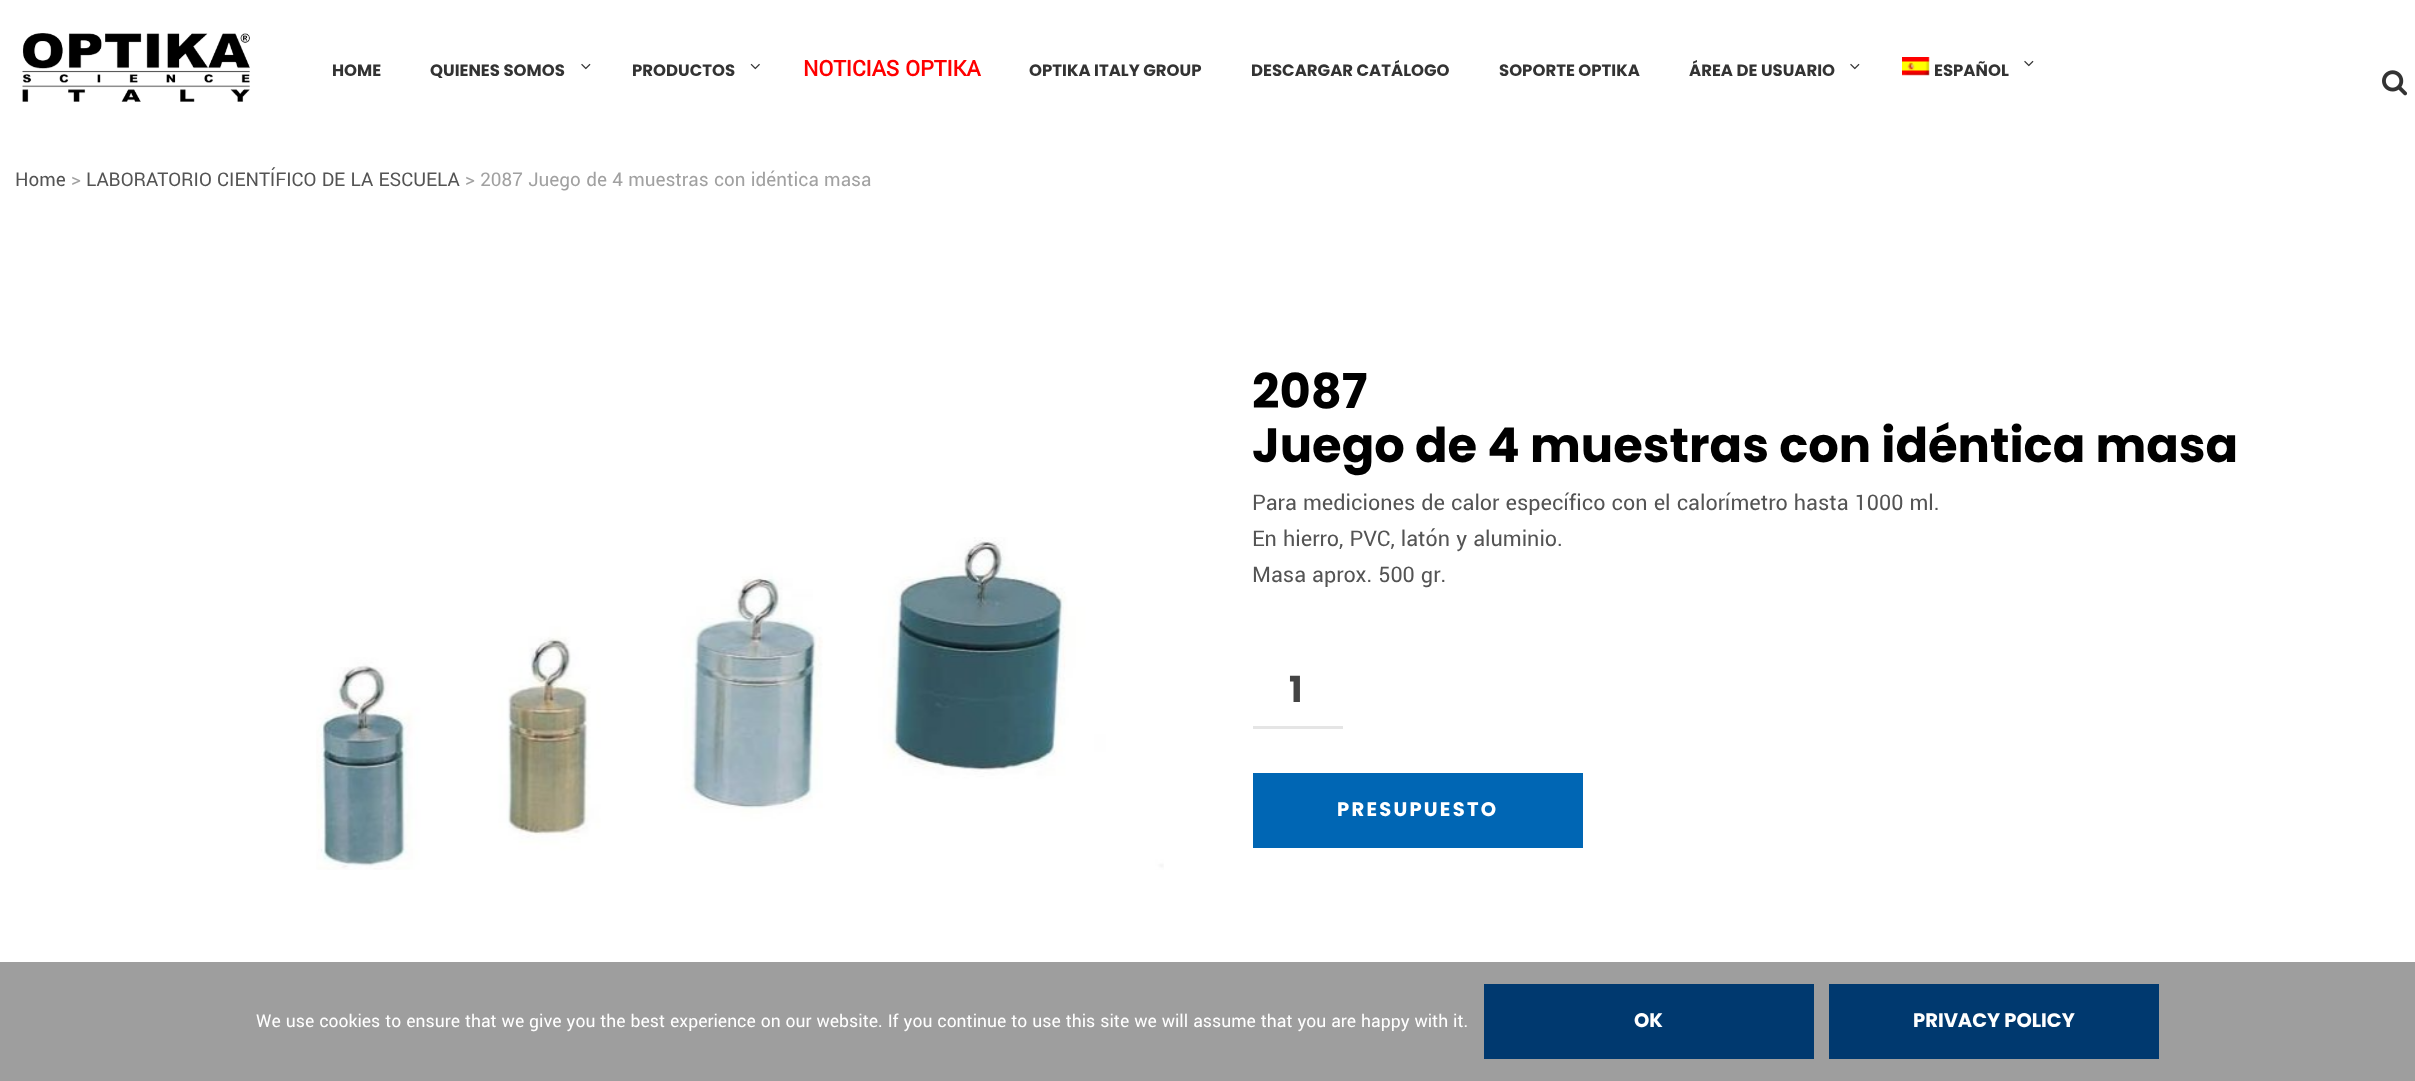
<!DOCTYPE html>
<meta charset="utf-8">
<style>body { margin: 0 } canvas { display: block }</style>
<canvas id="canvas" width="2415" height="1081"></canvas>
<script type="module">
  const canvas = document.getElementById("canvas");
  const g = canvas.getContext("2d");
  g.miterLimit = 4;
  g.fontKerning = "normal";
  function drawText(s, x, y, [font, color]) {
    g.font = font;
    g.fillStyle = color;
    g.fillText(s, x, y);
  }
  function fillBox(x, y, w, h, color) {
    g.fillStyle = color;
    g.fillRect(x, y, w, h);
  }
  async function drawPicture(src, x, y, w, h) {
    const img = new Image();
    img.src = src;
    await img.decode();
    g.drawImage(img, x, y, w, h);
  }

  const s1 = ["bold 16.5px Poppins", "#333333"];
  const s2 = ["bold 24px Yantramanav", "#FF0000"];
  const s3 = ["21px Yantramanav", "#545454"];
  const s4 = ["21px Yantramanav", "#A1A1A1"];
  const s5 = ["bold 48px Poppins", "#000000"];
  const s6 = ["24px Yantramanav", "#545454"];
  const s7 = ["bold 36px Poppins", "#444444"];
  const s8 = ["bold 19.5px Poppins", "#FFFFFF"];
  const s9 = ["19.5px Yantramanav", "#FFFFFF"];

  fillBox(0, 0, 2415, 1081, "#FFFFFF");
  await drawPicture("pic1.png", 22, 33, 228, 69);
  drawText("HOME", 332, 76, s1);
  drawText("QUIENES SOMOS", 430, 76, s1);
  await drawPicture("pic2.png", 581, 63, 10, 7);
  drawText("PRODUCTOS", 632, 76, s1);
  await drawPicture("pic3.png", 750, 63, 10, 7);
  drawText("NOTICIAS OPTIKA", 803, 76, s2);
  drawText("OPTIKA ITALY GROUP", 1029, 76, s1);
  drawText("DESCARGAR CATÁLOGO", 1251, 76, s1);
  drawText("SOPORTE OPTIKA", 1499, 76, s1);
  drawText("ÁREA DE USUARIO", 1689, 76, s1);
  await drawPicture("pic2.png", 1850, 63, 10, 7);
  await drawPicture("pic4.png", 1902, 57, 28, 19);
  drawText("ESPAÑOL", 1934, 76, s1);
  await drawPicture("pic2.png", 2024, 60, 10, 7);
  await drawPicture("pic5.png", 2382, 70, 26, 26);
  drawText("Home", 15, 186, s3);
  drawText(">", 71, 186, s4);
  drawText("LABORATORIO CIENTÍFICO DE LA ESCUELA", 86, 186, s3);
  drawText("> 2087 Juego de 4 muestras con idéntica masa", 465, 186, s4);
  await drawPicture("pic6.png", 316, 537, 848, 333);
  drawText("2087", 1252, 408, s5);
  drawText("Juego de 4 muestras con idéntica masa", 1252, 462, s5);
  drawText("Para mediciones de calor específico con el calorímetro hasta 1000 ml.", 1252, 510, s6);
  drawText("En hierro, PVC, latón y aluminio.", 1252, 546, s6);
  drawText("Masa aprox. 500 gr.", 1252, 582, s6);
  fillBox(1253, 726, 90, 3, "#E5E5E5");
  drawText("1", 1289, 702, s7);
  fillBox(1253, 773, 330, 75, "#0066B4");
  g.letterSpacing = "2.25px";
  drawText("PRESUPUESTO", 1337, 816, s8);
  fillBox(0, 962, 2415, 119, "#9E9E9E");
  g.letterSpacing = "0px";
  drawText("We use cookies to ensure that we give you the best experience on our website. If you continue to use this site we will assume that you are happy with it.", 256, 1027, s9);
  fillBox(1484, 984, 330, 75, "#00396F");
  drawText("OK", 1634, 1027, s8);
  fillBox(1829, 984, 330, 75, "#00396F");
  drawText("PRIVACY POLICY", 1913, 1027, s8);
</script>
